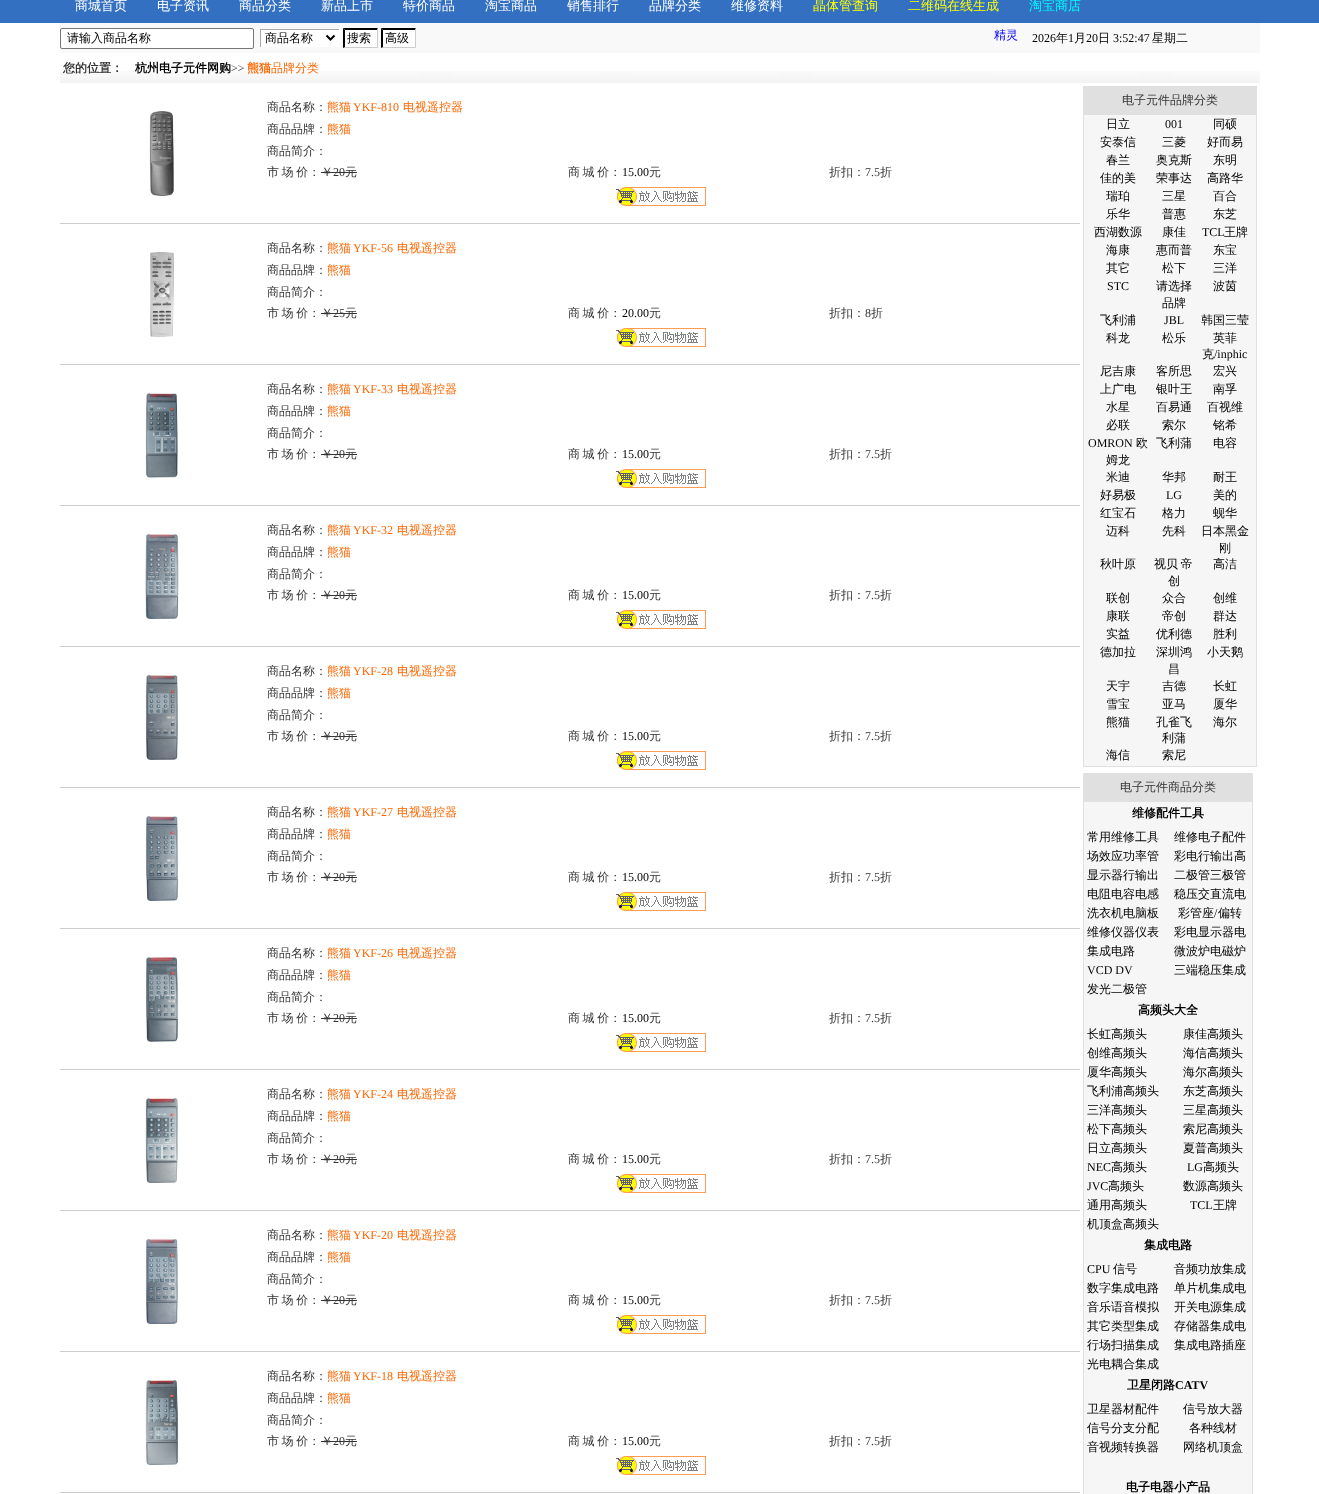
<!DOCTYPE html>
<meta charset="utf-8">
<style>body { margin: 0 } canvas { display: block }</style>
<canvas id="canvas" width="1319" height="1494"></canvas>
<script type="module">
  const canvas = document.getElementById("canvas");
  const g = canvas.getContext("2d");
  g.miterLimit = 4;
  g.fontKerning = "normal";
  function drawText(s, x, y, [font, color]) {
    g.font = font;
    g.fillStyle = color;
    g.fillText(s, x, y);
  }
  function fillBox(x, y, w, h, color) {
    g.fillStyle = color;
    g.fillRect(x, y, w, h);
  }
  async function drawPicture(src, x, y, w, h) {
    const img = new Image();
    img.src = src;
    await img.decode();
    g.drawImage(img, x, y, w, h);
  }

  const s1 = ["500 13px WenQuanYi Zen Hei", "#FFFFFF"];
  const s2 = ["500 13px WenQuanYi Zen Hei", "#FFFF00"];
  const s3 = ["500 13px WenQuanYi Zen Hei", "#00FFFF"];
  const s4 = ["500 12px WenQuanYi Zen Hei", "#000000"];
  const s5 = ["500 12px WenQuanYi Zen Hei", "#0000FF"];
  const s6 = ["12px Liberation Serif", "#000000"];
  const s7 = ["bold 12px WenQuanYi Zen Hei", "#353535"];
  const s8 = ["bold 12px WenQuanYi Zen Hei", "#000000"];
  const s9 = ["12px Liberation Serif", "#353535"];
  const s10 = ["bold 12px WenQuanYi Zen Hei", "#FF6600"];
  const s11 = ["500 12px WenQuanYi Zen Hei", "#FF6600"];
  const s12 = ["500 12px WenQuanYi Zen Hei", "#353535"];
  const s13 = ["12px Liberation Serif", "#FF6600"];
  const s14 = ["bold 12px Liberation Serif", "#000000"];

  fillBox(0, 0, 1319, 1494, "#FFFFFF");
  fillBox(0, 0, 1319, 23, "#3370C1");
  drawText("商城首页", 75, 10, s1);
  drawText("电子资讯", 157, 10, s1);
  drawText("商品分类", 239, 10, s1);
  drawText("新品上市", 321, 10, s1);
  drawText("特价商品", 403, 10, s1);
  drawText("淘宝商品", 485, 10, s1);
  drawText("销售排行", 567, 10, s1);
  drawText("品牌分类", 649, 10, s1);
  drawText("维修资料", 731, 10, s1);
  drawText("晶体管查询", 813, 10, s2);
  drawText("二维码在线生成", 908, 10, s2);
  drawText("淘宝商店", 1029, 10, s3);
  fillBox(60, 23, 1200, 30, "#F9F9F9");
  g.fillStyle = "#FFFFFF";
  g.beginPath();
  g.roundRect(60.5, 28.5, 193, 20, 1.5);
  g.fill();
  g.strokeStyle = "#767676";
  g.stroke();
  drawText("请输入商品名称", 67, 42, s4);
  fillBox(261, 30, 78, 17, "#FFFFFF");
  fillBox(260, 29, 80, 1, "#AAAAAA");
  fillBox(339, 29, 1, 18, "#FFFFFF");
  fillBox(260, 29, 1, 18, "#AAAAAA");
  g.beginPath();
  g.moveTo(326.5, 35.5);
  g.lineTo(330.5, 39.5);
  g.lineTo(334.5, 35.5);
  g.strokeStyle = "#000000";
  g.lineWidth = 2;
  g.stroke();
  drawText("商品名称", 265, 42, s4);
  fillBox(343, 28, 35, 20, "#FFFFFF");
  g.fillStyle = "#000000";
  g.beginPath();
  g.moveTo(343, 28);
  g.lineTo(378, 28);
  g.lineTo(377, 30);
  g.lineTo(345, 30);
  g.closePath();
  g.fill();
  g.fillStyle = "#CCCCCC";
  g.beginPath();
  g.moveTo(378, 28);
  g.lineTo(378, 48);
  g.lineTo(377, 47);
  g.lineTo(377, 30);
  g.closePath();
  g.fill();
  g.beginPath();
  g.moveTo(378, 48);
  g.lineTo(343, 48);
  g.lineTo(345, 47);
  g.lineTo(377, 47);
  g.closePath();
  g.fill();
  g.fillStyle = "#000000";
  g.beginPath();
  g.moveTo(343, 48);
  g.lineTo(343, 28);
  g.lineTo(345, 30);
  g.lineTo(345, 47);
  g.closePath();
  g.fill();
  drawText("搜索", 347, 42, s4);
  fillBox(381, 28, 35, 20, "#FFFFFF");
  g.fillStyle = "#000000";
  g.beginPath();
  g.moveTo(381, 28);
  g.lineTo(416, 28);
  g.lineTo(415, 30);
  g.lineTo(383, 30);
  g.closePath();
  g.fill();
  g.fillStyle = "#CCCCCC";
  g.beginPath();
  g.moveTo(416, 28);
  g.lineTo(416, 48);
  g.lineTo(415, 47);
  g.lineTo(415, 30);
  g.closePath();
  g.fill();
  g.beginPath();
  g.moveTo(416, 48);
  g.lineTo(381, 48);
  g.lineTo(383, 47);
  g.lineTo(415, 47);
  g.closePath();
  g.fill();
  g.fillStyle = "#000000";
  g.beginPath();
  g.moveTo(381, 48);
  g.lineTo(381, 28);
  g.lineTo(383, 30);
  g.lineTo(383, 47);
  g.closePath();
  g.fill();
  drawText("高级", 385, 42, s4);
  drawText("精灵", 994, 39, s5);
  drawText("2026", 1032, 42, s6);
  drawText("年", 1056, 42, s4);
  drawText("1", 1068, 42, s6);
  drawText("月", 1074, 42, s4);
  drawText("20", 1086, 42, s6);
  drawText("日", 1098, 42, s4);
  drawText("3:52:47", 1113, 42, s6);
  drawText("星期二", 1152, 42, s4);
  await drawPicture("pic1.png", 60, 71, 1200, 12);
  drawText("您的位置：", 63, 72, s7);
  drawText("杭州电子元件网购", 135, 72, s8);
  drawText(">>", 231, 72, s9);
  drawText("熊猫", 247, 72, s10);
  drawText("品牌分类", 271, 72, s11);
  drawText("商品名称：", 267, 111, s12);
  drawText("熊猫", 327, 111, s11);
  drawText("YKF-810", 353, 111, s13);
  drawText("电视遥控器", 403, 111, s11);
  drawText("商品品牌：", 267, 133, s12);
  drawText("熊猫", 327, 133, s11);
  drawText("商品简介：", 267, 155, s12);
  g.wordSpacing = "-1px";
  drawText("市 场 价：", 267, 176, s12);
  g.wordSpacing = "0px";
  drawText("￥", 321, 176, s12);
  drawText("20", 333, 176, s9);
  fillBox(321, 172, 36, 1, "#353535");
  drawText("元", 345, 176, s12);
  g.wordSpacing = "-1px";
  drawText("商 城 价：", 568, 176, s12);
  g.wordSpacing = "0px";
  drawText("15.00", 622, 176, s6);
  drawText("元", 649, 176, s12);
  drawText("折扣：", 829, 176, s12);
  drawText("7.5", 865, 176, s9);
  drawText("折", 880, 176, s12);
  await drawPicture("pic2.png", 616, 187, 90, 19);
  fillBox(60, 223, 1020, 1, "#CCCCCC");
  await drawPicture("pic3.png", 149, 111, 25, 85);
  drawText("商品名称：", 267, 252, s12);
  drawText("熊猫", 327, 252, s11);
  drawText("YKF-56", 353, 252, s13);
  drawText("电视遥控器", 397, 252, s11);
  drawText("商品品牌：", 267, 274, s12);
  drawText("熊猫", 327, 274, s11);
  drawText("商品简介：", 267, 296, s12);
  g.wordSpacing = "-1px";
  drawText("市 场 价：", 267, 317, s12);
  g.wordSpacing = "0px";
  drawText("￥", 321, 317, s12);
  drawText("25", 333, 317, s9);
  fillBox(321, 313, 36, 1, "#353535");
  drawText("元", 345, 317, s12);
  g.wordSpacing = "-1px";
  drawText("商 城 价：", 568, 317, s12);
  g.wordSpacing = "0px";
  drawText("20.00", 622, 317, s6);
  drawText("元", 649, 317, s12);
  drawText("折扣：", 829, 317, s12);
  drawText("8", 865, 317, s9);
  drawText("折", 871, 317, s12);
  await drawPicture("pic2.png", 616, 328, 90, 19);
  fillBox(60, 364, 1020, 1, "#CCCCCC");
  await drawPicture("pic4.png", 150, 252, 24, 85);
  drawText("商品名称：", 267, 393, s12);
  drawText("熊猫", 327, 393, s11);
  drawText("YKF-33", 353, 393, s13);
  drawText("电视遥控器", 397, 393, s11);
  drawText("商品品牌：", 267, 415, s12);
  drawText("熊猫", 327, 415, s11);
  drawText("商品简介：", 267, 437, s12);
  g.wordSpacing = "-1px";
  drawText("市 场 价：", 267, 458, s12);
  g.wordSpacing = "0px";
  drawText("￥", 321, 458, s12);
  drawText("20", 333, 458, s9);
  fillBox(321, 454, 36, 1, "#353535");
  drawText("元", 345, 458, s12);
  g.wordSpacing = "-1px";
  drawText("商 城 价：", 568, 458, s12);
  g.wordSpacing = "0px";
  drawText("15.00", 622, 458, s6);
  drawText("元", 649, 458, s12);
  drawText("折扣：", 829, 458, s12);
  drawText("7.5", 865, 458, s9);
  drawText("折", 880, 458, s12);
  await drawPicture("pic2.png", 616, 469, 90, 19);
  fillBox(60, 505, 1020, 1, "#CCCCCC");
  await drawPicture("pic5.png", 145, 393, 33, 85);
  drawText("商品名称：", 267, 534, s12);
  drawText("熊猫", 327, 534, s11);
  drawText("YKF-32", 353, 534, s13);
  drawText("电视遥控器", 397, 534, s11);
  drawText("商品品牌：", 267, 556, s12);
  drawText("熊猫", 327, 556, s11);
  drawText("商品简介：", 267, 578, s12);
  g.wordSpacing = "-1px";
  drawText("市 场 价：", 267, 599, s12);
  g.wordSpacing = "0px";
  drawText("￥", 321, 599, s12);
  drawText("20", 333, 599, s9);
  fillBox(321, 595, 36, 1, "#353535");
  drawText("元", 345, 599, s12);
  g.wordSpacing = "-1px";
  drawText("商 城 价：", 568, 599, s12);
  g.wordSpacing = "0px";
  drawText("15.00", 622, 599, s6);
  drawText("元", 649, 599, s12);
  drawText("折扣：", 829, 599, s12);
  drawText("7.5", 865, 599, s9);
  drawText("折", 880, 599, s12);
  await drawPicture("pic2.png", 616, 610, 90, 19);
  fillBox(60, 646, 1020, 1, "#CCCCCC");
  await drawPicture("pic6.png", 145, 534, 34, 85);
  drawText("商品名称：", 267, 675, s12);
  drawText("熊猫", 327, 675, s11);
  drawText("YKF-28", 353, 675, s13);
  drawText("电视遥控器", 397, 675, s11);
  drawText("商品品牌：", 267, 697, s12);
  drawText("熊猫", 327, 697, s11);
  drawText("商品简介：", 267, 719, s12);
  g.wordSpacing = "-1px";
  drawText("市 场 价：", 267, 740, s12);
  g.wordSpacing = "0px";
  drawText("￥", 321, 740, s12);
  drawText("20", 333, 740, s9);
  fillBox(321, 736, 36, 1, "#353535");
  drawText("元", 345, 740, s12);
  g.wordSpacing = "-1px";
  drawText("商 城 价：", 568, 740, s12);
  g.wordSpacing = "0px";
  drawText("15.00", 622, 740, s6);
  drawText("元", 649, 740, s12);
  drawText("折扣：", 829, 740, s12);
  drawText("7.5", 865, 740, s9);
  drawText("折", 880, 740, s12);
  await drawPicture("pic2.png", 616, 751, 90, 19);
  fillBox(60, 787, 1020, 1, "#CCCCCC");
  await drawPicture("pic7.png", 145, 675, 33, 85);
  drawText("商品名称：", 267, 816, s12);
  drawText("熊猫", 327, 816, s11);
  drawText("YKF-27", 353, 816, s13);
  drawText("电视遥控器", 397, 816, s11);
  drawText("商品品牌：", 267, 838, s12);
  drawText("熊猫", 327, 838, s11);
  drawText("商品简介：", 267, 860, s12);
  g.wordSpacing = "-1px";
  drawText("市 场 价：", 267, 881, s12);
  g.wordSpacing = "0px";
  drawText("￥", 321, 881, s12);
  drawText("20", 333, 881, s9);
  fillBox(321, 877, 36, 1, "#353535");
  drawText("元", 345, 881, s12);
  g.wordSpacing = "-1px";
  drawText("商 城 价：", 568, 881, s12);
  g.wordSpacing = "0px";
  drawText("15.00", 622, 881, s6);
  drawText("元", 649, 881, s12);
  drawText("折扣：", 829, 881, s12);
  drawText("7.5", 865, 881, s9);
  drawText("折", 880, 881, s12);
  await drawPicture("pic2.png", 616, 892, 90, 19);
  fillBox(60, 928, 1020, 1, "#CCCCCC");
  await drawPicture("pic8.png", 145, 816, 34, 85);
  drawText("商品名称：", 267, 957, s12);
  drawText("熊猫", 327, 957, s11);
  drawText("YKF-26", 353, 957, s13);
  drawText("电视遥控器", 397, 957, s11);
  drawText("商品品牌：", 267, 979, s12);
  drawText("熊猫", 327, 979, s11);
  drawText("商品简介：", 267, 1001, s12);
  g.wordSpacing = "-1px";
  drawText("市 场 价：", 267, 1022, s12);
  g.wordSpacing = "0px";
  drawText("￥", 321, 1022, s12);
  drawText("20", 333, 1022, s9);
  fillBox(321, 1018, 36, 1, "#353535");
  drawText("元", 345, 1022, s12);
  g.wordSpacing = "-1px";
  drawText("商 城 价：", 568, 1022, s12);
  g.wordSpacing = "0px";
  drawText("15.00", 622, 1022, s6);
  drawText("元", 649, 1022, s12);
  drawText("折扣：", 829, 1022, s12);
  drawText("7.5", 865, 1022, s9);
  drawText("折", 880, 1022, s12);
  await drawPicture("pic2.png", 616, 1033, 90, 19);
  fillBox(60, 1069, 1020, 1, "#CCCCCC");
  await drawPicture("pic9.png", 146, 957, 33, 85);
  drawText("商品名称：", 267, 1098, s12);
  drawText("熊猫", 327, 1098, s11);
  drawText("YKF-24", 353, 1098, s13);
  drawText("电视遥控器", 397, 1098, s11);
  drawText("商品品牌：", 267, 1120, s12);
  drawText("熊猫", 327, 1120, s11);
  drawText("商品简介：", 267, 1142, s12);
  g.wordSpacing = "-1px";
  drawText("市 场 价：", 267, 1163, s12);
  g.wordSpacing = "0px";
  drawText("￥", 321, 1163, s12);
  drawText("20", 333, 1163, s9);
  fillBox(321, 1159, 36, 1, "#353535");
  drawText("元", 345, 1163, s12);
  g.wordSpacing = "-1px";
  drawText("商 城 价：", 568, 1163, s12);
  g.wordSpacing = "0px";
  drawText("15.00", 622, 1163, s6);
  drawText("元", 649, 1163, s12);
  drawText("折扣：", 829, 1163, s12);
  drawText("7.5", 865, 1163, s9);
  drawText("折", 880, 1163, s12);
  await drawPicture("pic2.png", 616, 1174, 90, 19);
  fillBox(60, 1210, 1020, 1, "#CCCCCC");
  await drawPicture("pic10.png", 145, 1098, 34, 85);
  drawText("商品名称：", 267, 1239, s12);
  drawText("熊猫", 327, 1239, s11);
  drawText("YKF-20", 353, 1239, s13);
  drawText("电视遥控器", 397, 1239, s11);
  drawText("商品品牌：", 267, 1261, s12);
  drawText("熊猫", 327, 1261, s11);
  drawText("商品简介：", 267, 1283, s12);
  g.wordSpacing = "-1px";
  drawText("市 场 价：", 267, 1304, s12);
  g.wordSpacing = "0px";
  drawText("￥", 321, 1304, s12);
  drawText("20", 333, 1304, s9);
  fillBox(321, 1300, 36, 1, "#353535");
  drawText("元", 345, 1304, s12);
  g.wordSpacing = "-1px";
  drawText("商 城 价：", 568, 1304, s12);
  g.wordSpacing = "0px";
  drawText("15.00", 622, 1304, s6);
  drawText("元", 649, 1304, s12);
  drawText("折扣：", 829, 1304, s12);
  drawText("7.5", 865, 1304, s9);
  drawText("折", 880, 1304, s12);
  await drawPicture("pic2.png", 616, 1315, 90, 19);
  fillBox(60, 1351, 1020, 1, "#CCCCCC");
  await drawPicture("pic11.png", 145, 1239, 33, 85);
  drawText("商品名称：", 267, 1380, s12);
  drawText("熊猫", 327, 1380, s11);
  drawText("YKF-18", 353, 1380, s13);
  drawText("电视遥控器", 397, 1380, s11);
  drawText("商品品牌：", 267, 1402, s12);
  drawText("熊猫", 327, 1402, s11);
  drawText("商品简介：", 267, 1424, s12);
  g.wordSpacing = "-1px";
  drawText("市 场 价：", 267, 1445, s12);
  g.wordSpacing = "0px";
  drawText("￥", 321, 1445, s12);
  drawText("20", 333, 1445, s9);
  fillBox(321, 1441, 36, 1, "#353535");
  drawText("元", 345, 1445, s12);
  g.wordSpacing = "-1px";
  drawText("商 城 价：", 568, 1445, s12);
  g.wordSpacing = "0px";
  drawText("15.00", 622, 1445, s6);
  drawText("元", 649, 1445, s12);
  drawText("折扣：", 829, 1445, s12);
  drawText("7.5", 865, 1445, s9);
  drawText("折", 880, 1445, s12);
  await drawPicture("pic2.png", 616, 1456, 90, 19);
  fillBox(60, 1492, 1020, 1, "#CCCCCC");
  await drawPicture("pic12.png", 145, 1380, 34, 85);
  fillBox(1083, 86, 174, 681, "#E0E0E0");
  drawText("电子元件品牌分类", 1122, 104, s12);
  fillBox(1084, 115, 172, 651, "#F6F6F6");
  drawText("日立", 1106, 128, s4);
  drawText("001", 1165, 128, s6);
  drawText("同硕", 1213, 128, s4);
  drawText("安泰信", 1100, 146, s4);
  drawText("三菱", 1162, 146, s4);
  drawText("好而易", 1207, 146, s4);
  drawText("春兰", 1106, 164, s4);
  drawText("奥克斯", 1156, 164, s4);
  drawText("东明", 1213, 164, s4);
  drawText("佳的美", 1100, 182, s4);
  drawText("荣事达", 1156, 182, s4);
  drawText("高路华", 1207, 182, s4);
  drawText("瑞珀", 1106, 200, s4);
  drawText("三星", 1162, 200, s4);
  drawText("百合", 1213, 200, s4);
  drawText("乐华", 1106, 218, s4);
  drawText("普惠", 1162, 218, s4);
  drawText("东芝", 1213, 218, s4);
  drawText("西湖数源", 1094, 236, s4);
  drawText("康佳", 1162, 236, s4);
  drawText("TCL", 1202, 236, s6);
  drawText("王牌", 1224, 236, s4);
  drawText("海康", 1106, 254, s4);
  drawText("惠而普", 1156, 254, s4);
  drawText("东宝", 1213, 254, s4);
  drawText("其它", 1106, 272, s4);
  drawText("松下", 1162, 272, s4);
  drawText("三洋", 1213, 272, s4);
  drawText("STC", 1107, 290, s6);
  drawText("请选择", 1156, 290, s4);
  drawText("品牌", 1162, 307, s4);
  drawText("波茵", 1213, 290, s4);
  drawText("飞利浦", 1100, 324, s4);
  drawText("JBL", 1164, 324, s6);
  drawText("韩国三莹", 1201, 324, s4);
  drawText("科龙", 1106, 342, s4);
  drawText("松乐", 1162, 342, s4);
  drawText("英菲", 1213, 342, s4);
  drawText("克", 1202, 358, s4);
  drawText("/inphic", 1214, 358, s6);
  drawText("尼吉康", 1100, 375, s4);
  drawText("客所思", 1156, 375, s4);
  drawText("宏兴", 1213, 375, s4);
  drawText("上广电", 1100, 393, s4);
  drawText("银叶王", 1156, 393, s4);
  drawText("南孚", 1213, 393, s4);
  drawText("水星", 1106, 411, s4);
  drawText("百易通", 1156, 411, s4);
  drawText("百视维", 1207, 411, s4);
  drawText("必联", 1106, 429, s4);
  drawText("索尔", 1162, 429, s4);
  drawText("铭希", 1213, 429, s4);
  drawText("OMRON", 1088, 447, s6);
  drawText("欧", 1136, 447, s4);
  drawText("姆龙", 1106, 464, s4);
  drawText("飞利蒲", 1156, 447, s4);
  drawText("电容", 1213, 447, s4);
  drawText("米迪", 1106, 481, s4);
  drawText("华邦", 1162, 481, s4);
  drawText("耐王", 1213, 481, s4);
  drawText("好易极", 1100, 499, s4);
  drawText("LG", 1166, 499, s6);
  drawText("美的", 1213, 499, s4);
  drawText("红宝石", 1100, 517, s4);
  drawText("格力", 1162, 517, s4);
  drawText("蚬华", 1213, 517, s4);
  drawText("迈科", 1106, 535, s4);
  drawText("先科", 1162, 535, s4);
  drawText("日本黑金", 1201, 535, s4);
  drawText("刚", 1219, 552, s4);
  drawText("秋叶原", 1100, 568, s4);
  g.wordSpacing = "-1px";
  drawText("视贝 帝", 1154, 568, s4);
  g.wordSpacing = "0px";
  drawText("创", 1168, 585, s4);
  drawText("高洁", 1213, 568, s4);
  drawText("联创", 1106, 602, s4);
  drawText("众合", 1162, 602, s4);
  drawText("创维", 1213, 602, s4);
  drawText("康联", 1106, 620, s4);
  drawText("帝创", 1162, 620, s4);
  drawText("群达", 1213, 620, s4);
  drawText("实益", 1106, 638, s4);
  drawText("优利德", 1156, 638, s4);
  drawText("胜利", 1213, 638, s4);
  drawText("德加拉", 1100, 656, s4);
  drawText("深圳鸿", 1156, 656, s4);
  drawText("昌", 1168, 673, s4);
  drawText("小天鹅", 1207, 656, s4);
  drawText("天宇", 1106, 690, s4);
  drawText("吉德", 1162, 690, s4);
  drawText("长虹", 1213, 690, s4);
  drawText("雪宝", 1106, 708, s4);
  drawText("亚马", 1162, 708, s4);
  drawText("厦华", 1213, 708, s4);
  drawText("熊猫", 1106, 726, s4);
  drawText("孔雀飞", 1156, 726, s4);
  drawText("利蒲", 1162, 742, s4);
  drawText("海尔", 1213, 726, s4);
  drawText("海信", 1106, 759, s4);
  drawText("索尼", 1162, 759, s4);
  fillBox(1083, 773, 170, 721, "#E0E0E0");
  drawText("电子元件商品分类", 1120, 791, s12);
  fillBox(1084, 802, 168, 692, "#F6F6F6");
  drawText("维修配件工具", 1132, 817, s8);
  drawText("常用维修工具", 1087, 841, s4);
  drawText("维修电子配件", 1174, 841, s4);
  drawText("场效应功率管", 1087, 860, s4);
  drawText("彩电行输出高", 1174, 860, s4);
  drawText("显示器行输出", 1087, 879, s4);
  drawText("二极管三极管", 1174, 879, s4);
  drawText("电阻电容电感", 1087, 898, s4);
  drawText("稳压交直流电", 1174, 898, s4);
  drawText("洗衣机电脑板", 1087, 917, s4);
  drawText("彩管座", 1178, 917, s4);
  drawText("/", 1214, 917, s6);
  drawText("偏转", 1218, 917, s4);
  drawText("维修仪器仪表", 1087, 936, s4);
  drawText("彩电显示器电", 1174, 936, s4);
  drawText("集成电路", 1087, 955, s4);
  drawText("微波炉电磁炉", 1174, 955, s4);
  drawText("VCD DV", 1087, 974, s6);
  drawText("三端稳压集成", 1174, 974, s4);
  drawText("发光二极管", 1087, 993, s4);
  drawText("高频头大全", 1138, 1014, s8);
  drawText("长虹高频头", 1087, 1038, s4);
  drawText("康佳高频头", 1183, 1038, s4);
  drawText("创维高频头", 1087, 1057, s4);
  drawText("海信高频头", 1183, 1057, s4);
  drawText("厦华高频头", 1087, 1076, s4);
  drawText("海尔高频头", 1183, 1076, s4);
  drawText("飞利浦高频头", 1087, 1095, s4);
  drawText("东芝高频头", 1183, 1095, s4);
  drawText("三洋高频头", 1087, 1114, s4);
  drawText("三星高频头", 1183, 1114, s4);
  drawText("松下高频头", 1087, 1133, s4);
  drawText("索尼高频头", 1183, 1133, s4);
  drawText("日立高频头", 1087, 1152, s4);
  drawText("夏普高频头", 1183, 1152, s4);
  drawText("NEC", 1087, 1171, s6);
  drawText("高频头", 1111, 1171, s4);
  drawText("LG", 1187, 1171, s6);
  drawText("高频头", 1203, 1171, s4);
  drawText("JVC", 1087, 1190, s6);
  drawText("高频头", 1108, 1190, s4);
  drawText("数源高频头", 1183, 1190, s4);
  drawText("通用高频头", 1087, 1209, s4);
  drawText("TCL", 1190, 1209, s6);
  drawText("王牌", 1213, 1209, s4);
  drawText("机顶盒高频头", 1087, 1228, s4);
  drawText("集成电路", 1144, 1249, s8);
  drawText("CPU", 1087, 1273, s6);
  drawText("信号", 1113, 1273, s4);
  drawText("音频功放集成", 1174, 1273, s4);
  drawText("数字集成电路", 1087, 1292, s4);
  drawText("单片机集成电", 1174, 1292, s4);
  drawText("音乐语音模拟", 1087, 1311, s4);
  drawText("开关电源集成", 1174, 1311, s4);
  drawText("其它类型集成", 1087, 1330, s4);
  drawText("存储器集成电", 1174, 1330, s4);
  drawText("行场扫描集成", 1087, 1349, s4);
  drawText("集成电路插座", 1174, 1349, s4);
  drawText("光电耦合集成", 1087, 1368, s4);
  drawText("卫星闭路", 1127, 1389, s8);
  drawText("CATV", 1175, 1389, s14);
  drawText("卫星器材配件", 1087, 1413, s4);
  drawText("信号放大器", 1183, 1413, s4);
  drawText("信号分支分配", 1087, 1432, s4);
  drawText("各种线材", 1189, 1432, s4);
  drawText("音视频转换器", 1087, 1451, s4);
  drawText("网络机顶盒", 1183, 1451, s4);
  drawText("电子电器小产品", 1126, 1491, s8);
</script>
